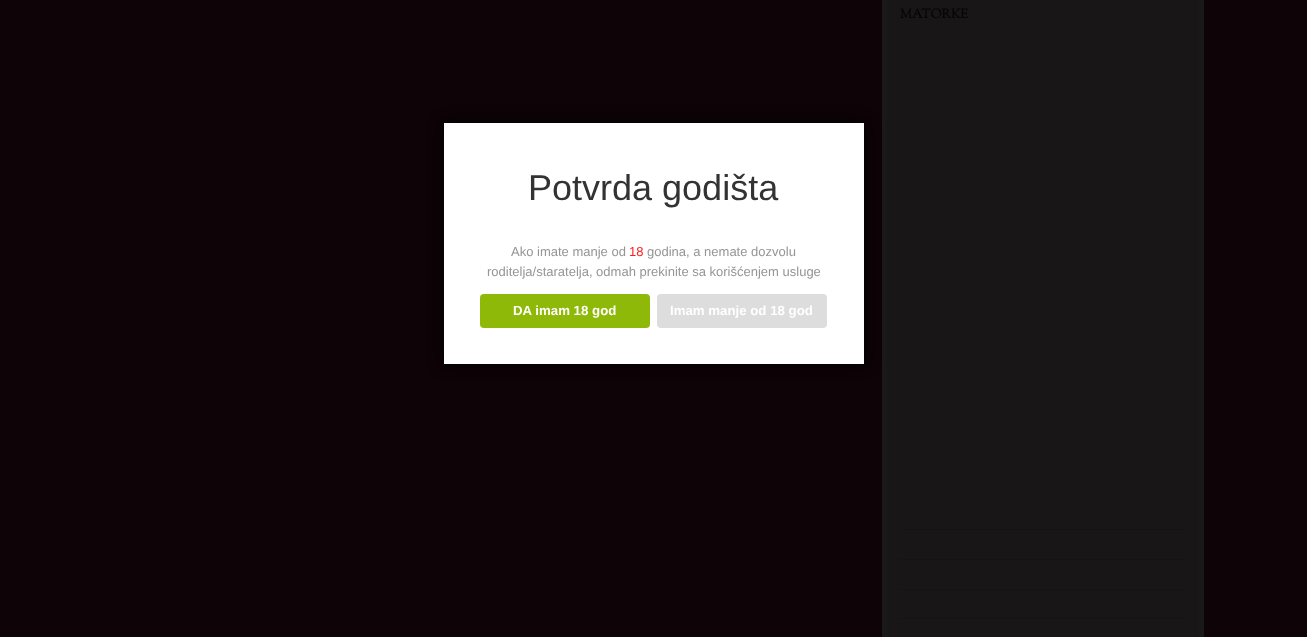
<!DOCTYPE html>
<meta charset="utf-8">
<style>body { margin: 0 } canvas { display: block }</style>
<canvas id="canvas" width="1307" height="637"></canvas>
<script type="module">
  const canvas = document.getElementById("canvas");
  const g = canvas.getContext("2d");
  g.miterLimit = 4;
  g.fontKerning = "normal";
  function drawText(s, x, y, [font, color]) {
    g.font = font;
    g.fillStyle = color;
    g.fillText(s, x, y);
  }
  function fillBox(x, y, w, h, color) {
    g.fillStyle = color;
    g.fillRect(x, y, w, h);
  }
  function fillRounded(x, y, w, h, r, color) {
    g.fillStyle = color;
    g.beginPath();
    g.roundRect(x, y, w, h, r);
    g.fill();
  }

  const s1 = ["bold 13px Sorts Mill Goudy", "#060704"];
  const s2 = ["36px Liberation Sans", "#333333"];
  const s3 = ["13px Liberation Sans", "#959595"];
  const s4 = ["13px Liberation Sans", "#FF1F1F"];
  const s5 = ["bold 13.25px Liberation Sans", "#FFFFFF"];

  fillBox(0, 0, 1307, 637, "#0E0307");
  g.fillStyle = "#191617";
  g.beginPath();
  g.rect(884.5, -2.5, 317, 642);
  g.fill();
  g.strokeStyle = "#191919";
  g.lineWidth = 5;
  g.stroke();
  drawText("MATORKE", 900, 18, s1);
  fillBox(900, 529, 286, 1, "#171315");
  fillBox(900, 559, 286, 1, "#171315");
  fillBox(900, 589, 286, 1, "#171315");
  fillBox(900, 618, 286, 1, "#171315");
  g.fillStyle = "#000000";
  g.filter = "blur(7.5px)";
  g.beginPath();
  g.rect(444, 123, 420, 241);
  g.fill();
  g.filter = "none";
  fillBox(444, 123, 420, 241, "#FFFFFF");
  drawText("Potvrda godišta", 528, 200, s2);
  drawText("Ako imate manje od", 511, 256, s3);
  drawText("18", 629, 256, s4);
  drawText("godina, a nemate dozvolu", 647, 256, s3);
  drawText("roditelja/staratelja, odmah prekinite sa korišćenjem usluge", 487, 276, s3);
  fillRounded(480, 294, 170, 34, 4, "#8EB908");
  drawText("DA imam 18 god", 513, 315, s5);
  fillRounded(657, 294, 170, 34, 4, "#DDDDDD");
  drawText("Imam manje od 18 god", 670, 315, s5);
</script>
